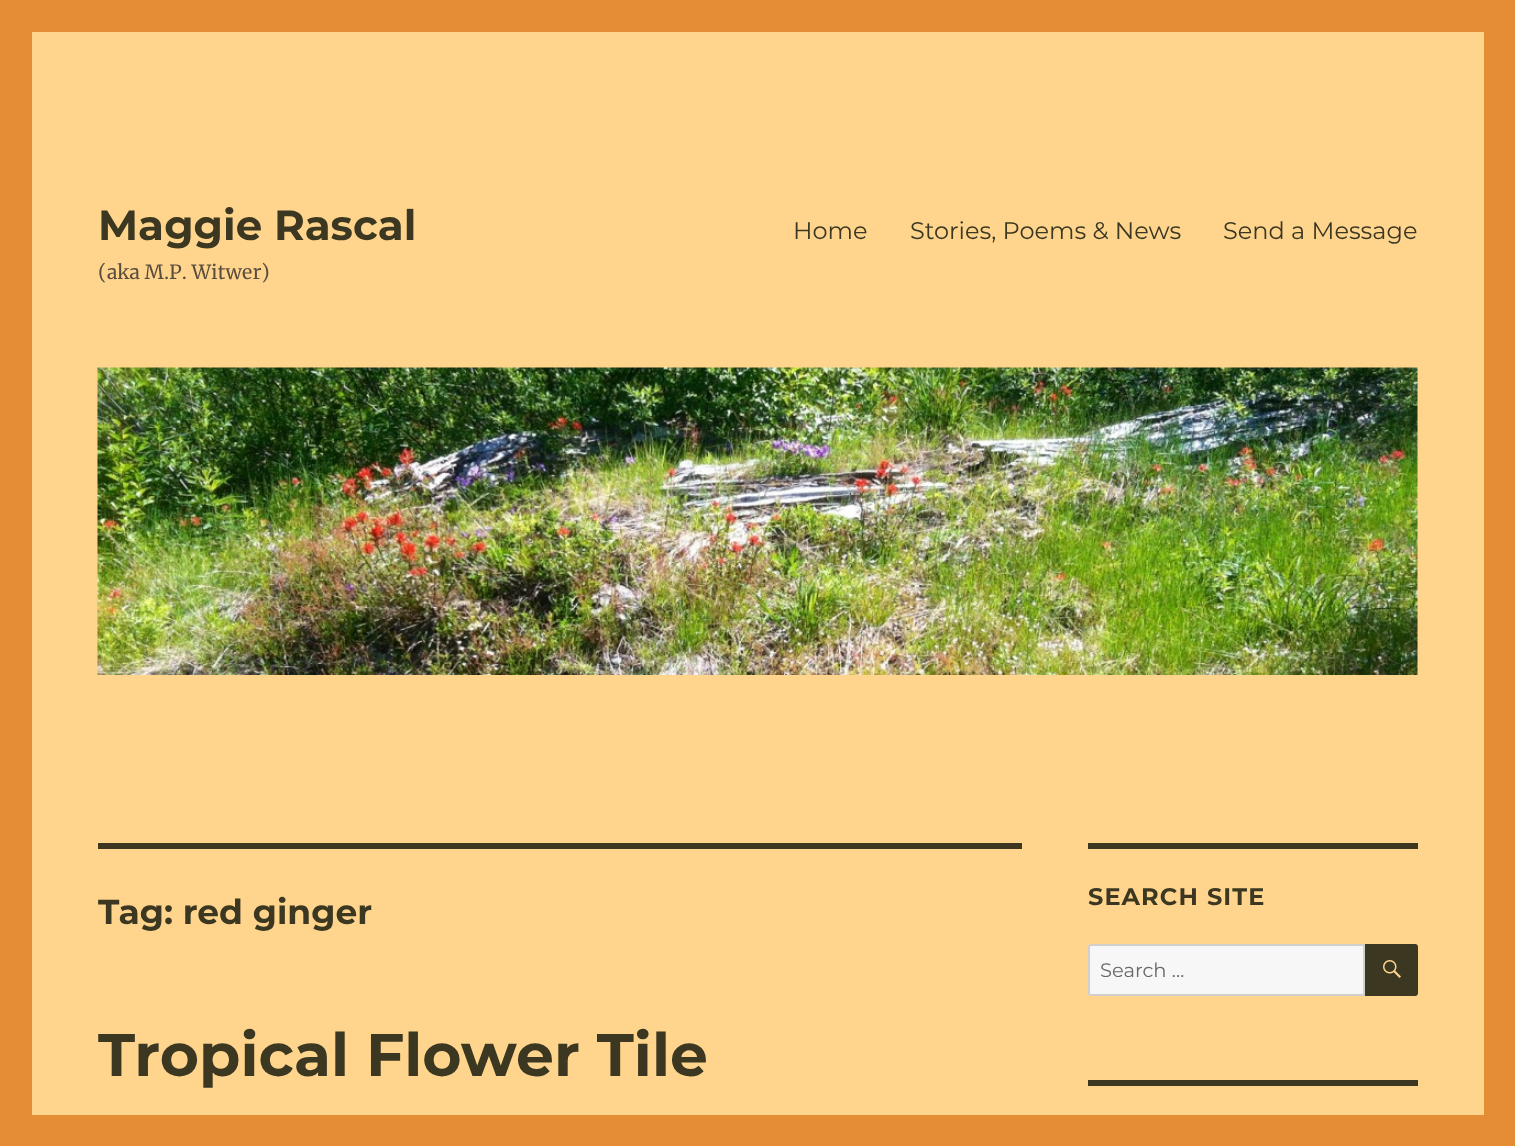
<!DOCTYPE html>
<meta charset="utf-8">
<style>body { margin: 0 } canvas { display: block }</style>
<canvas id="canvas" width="1515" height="1146"></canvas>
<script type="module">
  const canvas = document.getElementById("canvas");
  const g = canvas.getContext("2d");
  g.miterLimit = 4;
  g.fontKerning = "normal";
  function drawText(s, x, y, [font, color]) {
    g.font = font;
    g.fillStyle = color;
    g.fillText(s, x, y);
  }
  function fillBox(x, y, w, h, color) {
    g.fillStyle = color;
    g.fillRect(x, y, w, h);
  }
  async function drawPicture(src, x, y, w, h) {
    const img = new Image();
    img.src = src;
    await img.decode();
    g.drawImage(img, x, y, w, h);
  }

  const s1 = ["100 42px Montserrat", "#3B3721"];
  const s2 = ["19.5px Merriweather", "#5B4D3E"];
  const s3 = ["100 24px 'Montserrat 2'", "#3B3721"];
  const s4 = ["100 34.5px Montserrat", "#3B3721"];
  const s5 = ["100 60px Montserrat", "#3B3721"];
  const s6 = ["100 24px Montserrat", "#3B3721"];
  const s7 = ["100 19.5px 'Montserrat 2'", "#686868"];

  fillBox(0, 0, 1515, 1146, "#E58D34");
  fillBox(32, 32, 1452, 1083, "#FFD58E");
  drawText("Maggie Rascal", 98, 240, s1);
  drawText("(aka M.P. Witwer)", 98, 279, s2);
  drawText("Home", 793, 239, s3);
  drawText("Stories, Poems & News", 910, 239, s3);
  drawText("Send a Message", 1223, 239, s3);
  await drawPicture("pic1.png", 97, 367, 1321, 308);
  fillBox(98, 843, 924, 6, "#3B3721");
  drawText("Tag: red ginger", 98, 924, s4);
  drawText("Tropical Flower Tile", 98, 1076, s5);
  fillBox(1088, 843, 330, 6, "#3B3721");
  g.letterSpacing = "1.1px";
  drawText("SEARCH SITE", 1088, 905, s6);
  g.fillStyle = "#F7F7F7";
  g.beginPath();
  g.roundRect(1088, 944, 277, 52, [3, 0, 0, 3]);
  g.fill();
  g.beginPath();
  g.roundRect(1089, 945, 275, 50, [2, 0, 0, 2]);
  g.strokeStyle = "rgba(59, 55, 33, 0.2)";
  g.lineWidth = 2;
  g.stroke();
  g.letterSpacing = "0px";
  drawText("Search …", 1100, 977, s7);
  g.fillStyle = "#3B3721";
  g.beginPath();
  g.roundRect(1365, 944, 53, 52, [0, 3, 3, 0]);
  g.fill();
  await drawPicture("pic2.png", 1383, 960, 18, 18);
  fillBox(1088, 1080, 330, 6, "#3B3721");
</script>
